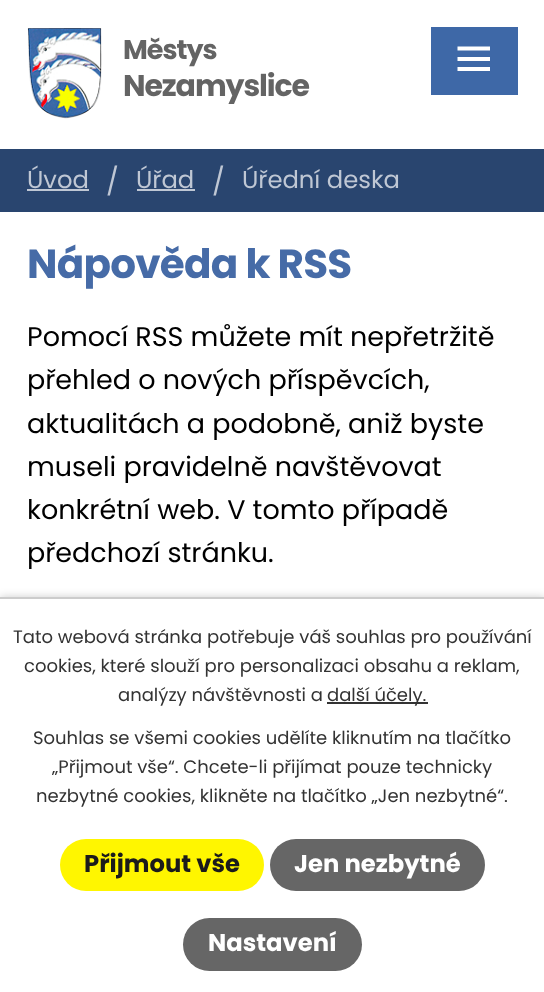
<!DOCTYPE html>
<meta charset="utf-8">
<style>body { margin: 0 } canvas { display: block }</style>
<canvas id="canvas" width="544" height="992"></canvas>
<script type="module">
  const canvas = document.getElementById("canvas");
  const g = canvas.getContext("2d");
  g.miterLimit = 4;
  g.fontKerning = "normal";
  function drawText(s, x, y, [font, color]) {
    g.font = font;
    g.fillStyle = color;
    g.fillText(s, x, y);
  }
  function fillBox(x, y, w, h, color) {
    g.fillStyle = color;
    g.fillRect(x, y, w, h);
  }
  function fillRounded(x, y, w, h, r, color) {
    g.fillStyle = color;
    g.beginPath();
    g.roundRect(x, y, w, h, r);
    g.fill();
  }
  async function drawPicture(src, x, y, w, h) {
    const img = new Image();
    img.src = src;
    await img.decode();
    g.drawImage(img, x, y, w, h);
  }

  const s1 = ["bold 27px Poppins", "#646464"];
  const s2 = ["bold 30px Poppins", "#646464"];
  const s3 = ["24.25px Poppins", "#BFC7D4"];
  const s4 = ["27px Poppins", "#BFC7D4"];
  const s5 = ["bold 40.5px Poppins", "#466BA7"];
  const s6 = ["27px Poppins", "#000000"];
  const s7 = ["18px Poppins", "#333333"];
  const s8 = ["bold 24.25px Poppins", "#1B1B1B"];
  const s9 = ["bold 24.25px Poppins", "#FFFFFF"];

  fillBox(0, 0, 544, 992, "#FFFFFF");
  await drawPicture("pic1.png", 27, 28, 75, 91);
  g.letterSpacing = "-1px";
  drawText("Městys", 123, 59, s1);
  g.letterSpacing = "-1.1px";
  drawText("Nezamyslice", 123, 96, s2);
  fillBox(431, 27, 87, 68, "#3E68A7");
  g.fillStyle = "#FFFFFF";
  g.beginPath();
  g.moveTo(457.5, 71);
  g.lineTo(457.5, 67);
  g.lineTo(490, 67);
  g.lineTo(490, 71);
  g.closePath();
  g.moveTo(457.5, 46.5);
  g.lineTo(490, 46.5);
  g.lineTo(490, 50.5);
  g.lineTo(457.5, 50.5);
  g.closePath();
  g.moveTo(457.5, 61);
  g.lineTo(457.5, 57);
  g.lineTo(490, 57);
  g.lineTo(490, 61);
  g.closePath();
  g.fill();
  fillBox(0, 149, 544, 63, "#29456F");
  g.letterSpacing = "0px";
  drawText("Úvod", 27, 188, s3);
  fillBox(27, 189, 62, 2, "#BFC7D4");
  drawText("/", 106, 191, s4);
  drawText("Úřad", 136, 188, s3);
  fillBox(137, 189, 58, 2, "#BFC7D4");
  drawText("/", 212, 191, s4);
  drawText("Úřední deska", 242, 188, s3);
  g.letterSpacing = "-0.75px";
  drawText("Nápověda k RSS", 27, 278, s5);
  g.letterSpacing = "0px";
  drawText("Pomocí RSS můžete mít nepřetržitě", 27, 346, s6);
  drawText("přehled o nových příspěvcích,", 27, 389, s6);
  drawText("aktualitách a podobně, aniž byste", 27, 433, s6);
  drawText("museli pravidelně navštěvovat", 27, 476, s6);
  drawText("konkrétní web. V tomto případě", 27, 519, s6);
  drawText("předchozí stránku.", 27, 562, s6);
  g.fillStyle = "rgba(0, 0, 0, 0.2)";
  g.filter = "blur(4px)";
  g.beginPath();
  g.rect(0, 597, 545, 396);
  g.fill();
  g.filter = "none";
  fillBox(0, 599, 544, 393, "#FFFFFF");
  fillBox(0, 597, 544, 2, "#CCCCCC");
  drawText("Tato webová stránka potřebuje váš souhlas pro používání", 13, 643, s7);
  drawText("cookies, které slouží pro personalizaci obsahu a reklam,", 24, 672, s7);
  drawText("analýzy návštěvnosti a", 118, 701, s7);
  fillBox(327, 702, 101, 2, "#333333");
  drawText("další účely.", 327, 701, s7);
  drawText("Souhlas se všemi cookies udělíte kliknutím na tlačítko", 33, 744, s7);
  drawText("„Přijmout vše“. Chcete-li přijímat pouze technicky", 52, 773, s7);
  drawText("nezbytné cookies, klikněte na tlačítko „Jen nezbytné“.", 36, 802, s7);
  fillRounded(60, 839, 204, 52, 26, "#FFF600");
  drawText("Přijmout vše", 84, 872, s8);
  fillRounded(270, 839, 215, 52, 26, "#666666");
  drawText("Jen nezbytné", 294, 872, s9);
  fillRounded(183, 918, 179, 53, 26.5, "#666666");
  drawText("Nastavení", 208, 951, s9);
</script>
